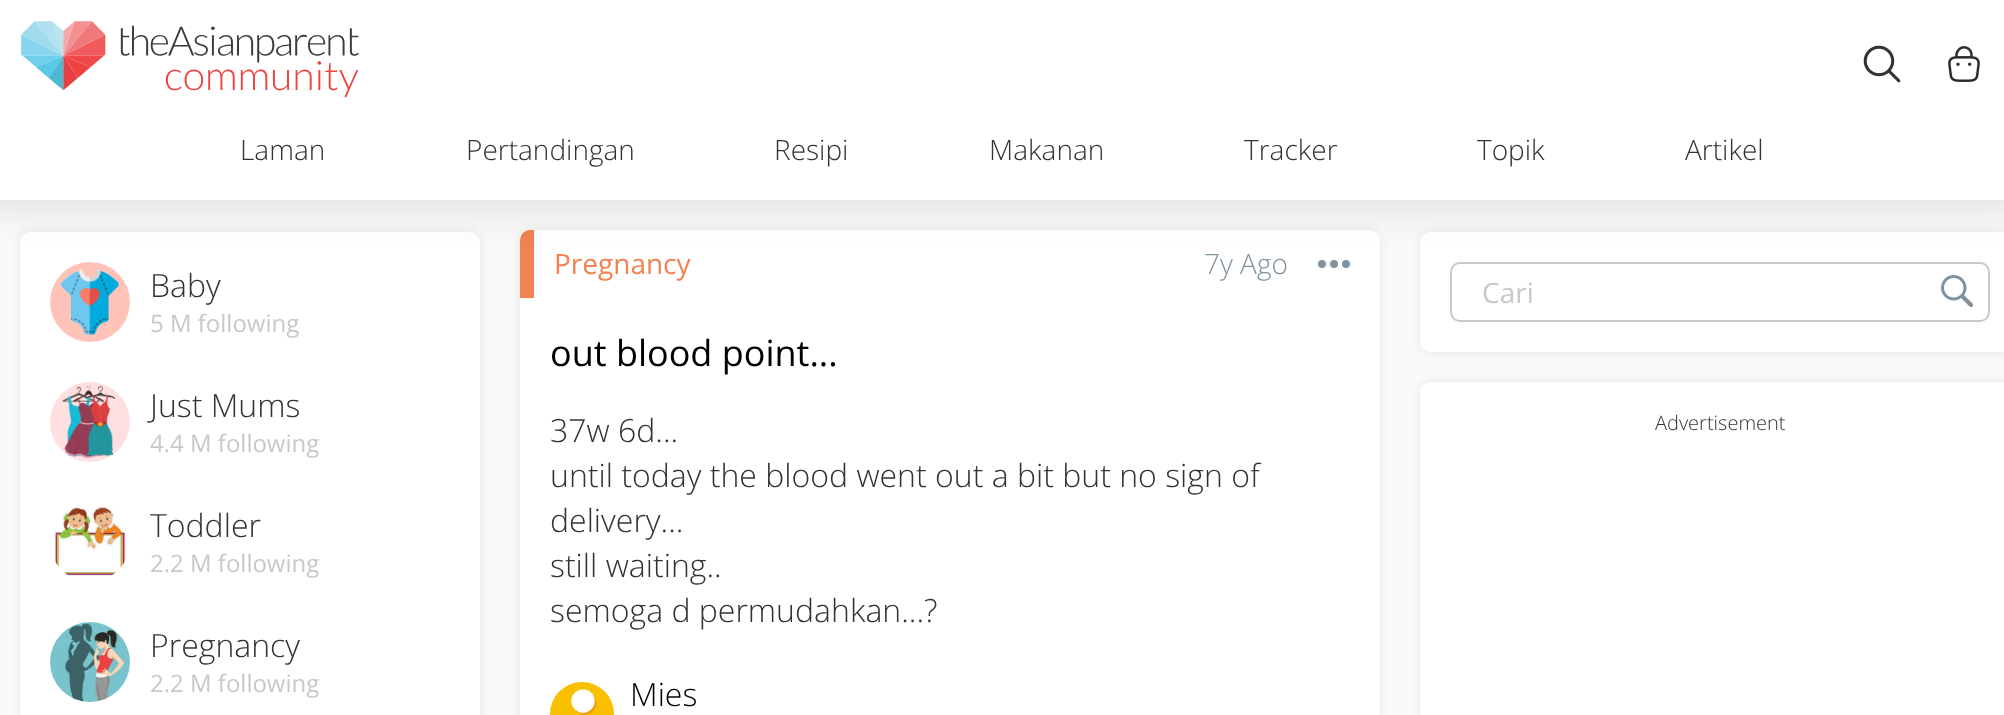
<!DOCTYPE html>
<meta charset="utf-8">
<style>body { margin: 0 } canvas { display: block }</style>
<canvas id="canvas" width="2004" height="715"></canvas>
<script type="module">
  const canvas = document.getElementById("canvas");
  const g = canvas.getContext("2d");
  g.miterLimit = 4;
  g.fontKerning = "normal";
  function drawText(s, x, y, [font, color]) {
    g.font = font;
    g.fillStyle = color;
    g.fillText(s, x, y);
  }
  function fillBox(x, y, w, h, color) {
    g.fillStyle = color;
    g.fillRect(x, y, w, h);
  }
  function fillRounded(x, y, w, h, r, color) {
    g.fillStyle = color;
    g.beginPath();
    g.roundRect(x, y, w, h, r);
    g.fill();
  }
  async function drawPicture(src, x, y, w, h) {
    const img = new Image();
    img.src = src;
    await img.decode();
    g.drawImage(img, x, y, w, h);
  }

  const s1 = ["300 28px Open Sans", "#333333"];
  const s2 = ["300 32px Open Sans", "#333333"];
  const s3 = ["24px Open Sans", "#C8C8C8"];
  const s4 = ["28px Open Sans", "#F18251"];
  const s5 = ["300 28px Open Sans", "#7F929E"];
  const s6 = ["36px Open Sans", "#000000"];
  const s7 = ["300 32px Open Sans", "#000000"];
  const s8 = ["28px Open Sans", "#C8C8C8"];
  const s9 = ["300 20px Open Sans", "#333333"];

  fillBox(0, 0, 2004, 715, "#FAFAFA");
  g.fillStyle = "#E6E6E6";
  g.filter = "blur(5px)";
  g.beginPath();
  g.roundRect(20, 232, 460, 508, 10);
  g.fill();
  g.filter = "none";
  fillRounded(20, 232, 460, 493, 10, "#FFFFFF");
  await drawPicture("pic4.png", 50, 262, 80, 80);
  g.fillStyle = "#E6E6E6";
  g.filter = "blur(5px)";
  g.beginPath();
  g.roundRect(520, 230, 860, 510, 10);
  g.fill();
  g.filter = "none";
  fillRounded(520, 230, 860, 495, 10, "#FFFFFF");
  g.fillStyle = "#F18251";
  g.beginPath();
  g.roundRect(520, 230, 14, 68, [10, 0, 0, 0]);
  g.fill();
  g.fillStyle = "#7F929E";
  g.beginPath();
  g.arc(1322, 264, 4, 0, Math.PI * 2);
  g.fill();
  g.beginPath();
  g.arc(1334, 264, 4, 0, Math.PI * 2);
  g.fill();
  g.beginPath();
  g.arc(1346, 264, 4, 0, Math.PI * 2);
  g.fill();
  g.fillStyle = "#E6E6E6";
  g.filter = "blur(5px)";
  g.beginPath();
  g.roundRect(1420, 232, 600, 120, 10);
  g.fill();
  g.filter = "none";
  fillRounded(1420, 232, 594, 120, 10, "#FFFFFF");
  g.beginPath();
  g.roundRect(1451, 263, 538, 58, 9);
  g.strokeStyle = "#C8C8C8";
  g.lineWidth = 2;
  g.stroke();
  g.fillStyle = "rgba(0, 0, 0, 0.1)";
  g.filter = "blur(20px)";
  g.beginPath();
  g.rect(-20, -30, 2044, 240);
  g.fill();
  g.filter = "none";
  fillBox(0, 0, 2004, 200, "#FFFFFF");
  await drawPicture("pic1.png", 21, 21, 338, 77);
  await drawPicture("pic2.png", 1863, 45, 38, 38);
  await drawPicture("pic3.png", 1948, 46, 32, 36);
  drawText("Laman", 240, 160, s1);
  drawText("Pertandingan", 466, 160, s1);
  drawText("Resipi", 774, 160, s1);
  drawText("Makanan", 989, 160, s1);
  drawText("Tracker", 1244, 160, s1);
  drawText("Topik", 1477, 160, s1);
  drawText("Artikel", 1685, 160, s1);
  drawText("Baby", 150, 297, s2);
  drawText("5 M following", 150, 332, s3);
  await drawPicture("pic5.png", 50, 382, 80, 80);
  drawText("Just Mums", 150, 417, s2);
  drawText("4.4 M following", 150, 452, s3);
  await drawPicture("pic6.png", 53, 504, 74, 72);
  drawText("Toddler", 150, 537, s2);
  drawText("2.2 M following", 150, 572, s3);
  await drawPicture("pic7.png", 50, 622, 80, 80);
  drawText("Pregnancy", 150, 657, s2);
  drawText("2.2 M following", 150, 692, s3);
  drawText("Pregnancy", 554, 274, s4);
  drawText("7y Ago", 1204, 274, s5);
  drawText("out blood point...", 550, 366, s6);
  drawText("37w 6d...", 550, 442, s2);
  drawText("until today the blood went out a bit but no sign of", 550, 487, s2);
  drawText("delivery...", 550, 532, s2);
  drawText("still waiting..", 550, 577, s2);
  drawText("semoga d permudahkan...?", 550, 622, s2);
  await drawPicture("pic8.png", 550, 682, 64, 33);
  drawText("Mies", 630, 706, s7);
  drawText("Cari", 1482, 303, s8);
  await drawPicture("pic9.png", 1941, 275, 33, 33);
  g.fillStyle = "#E6E6E6";
  g.filter = "blur(5px)";
  g.beginPath();
  g.roundRect(1420, 382, 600, 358, 10);
  g.fill();
  g.filter = "none";
  fillRounded(1420, 382, 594, 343, 10, "#FFFFFF");
  drawText("Advertisement", 1655, 430, s9);
</script>
